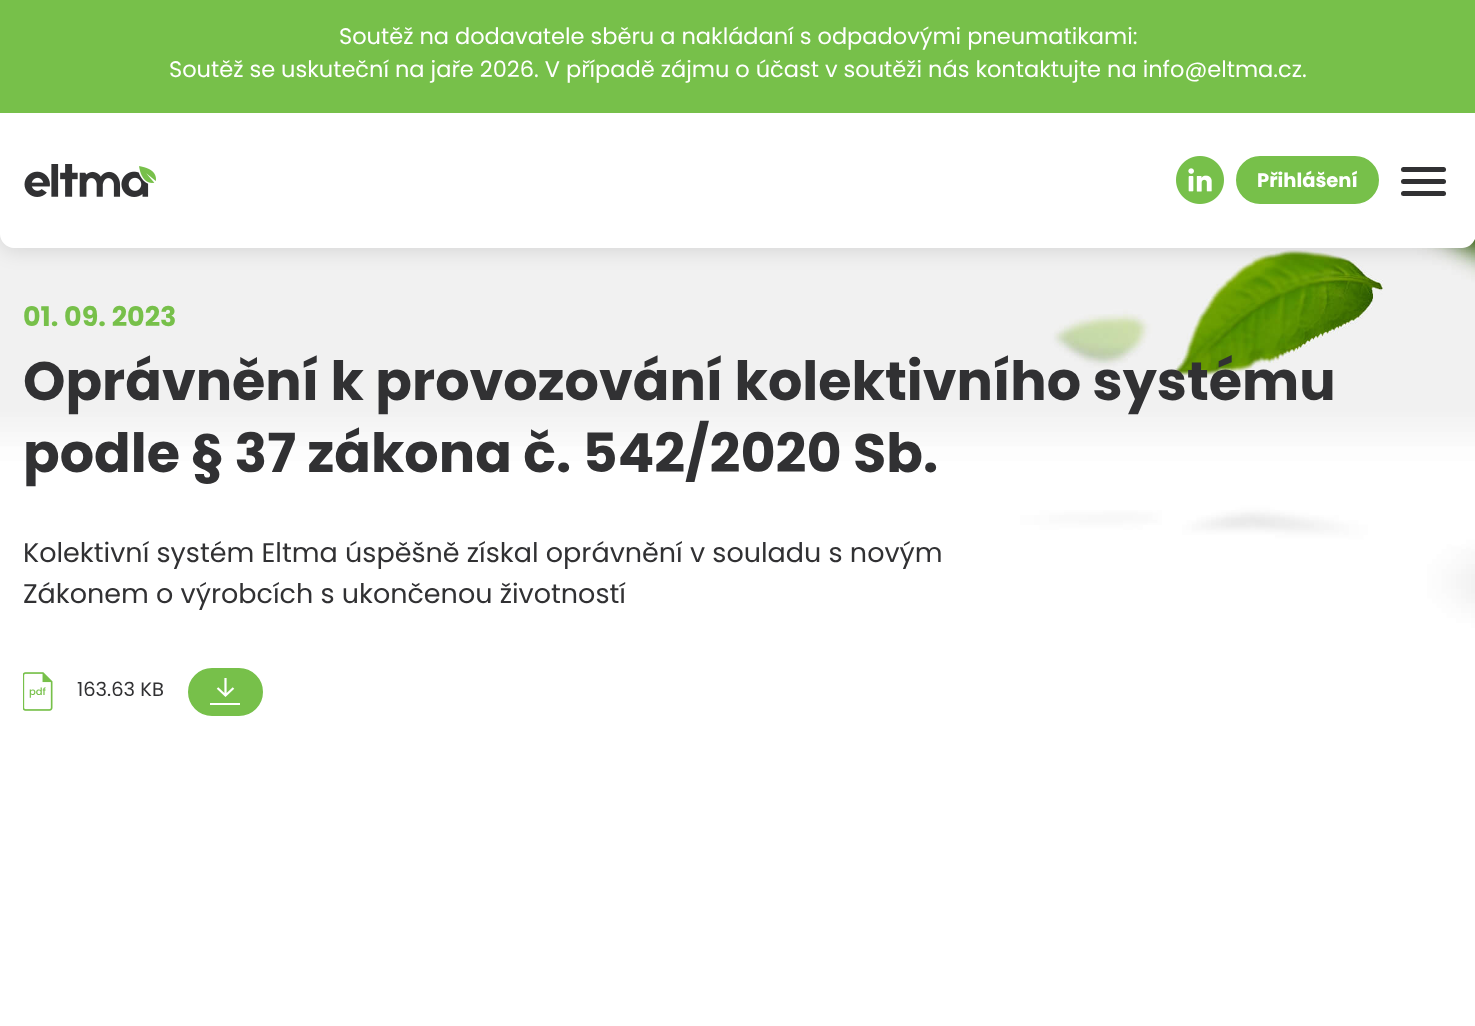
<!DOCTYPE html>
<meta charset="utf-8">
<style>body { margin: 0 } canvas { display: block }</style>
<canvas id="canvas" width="1475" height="1026"></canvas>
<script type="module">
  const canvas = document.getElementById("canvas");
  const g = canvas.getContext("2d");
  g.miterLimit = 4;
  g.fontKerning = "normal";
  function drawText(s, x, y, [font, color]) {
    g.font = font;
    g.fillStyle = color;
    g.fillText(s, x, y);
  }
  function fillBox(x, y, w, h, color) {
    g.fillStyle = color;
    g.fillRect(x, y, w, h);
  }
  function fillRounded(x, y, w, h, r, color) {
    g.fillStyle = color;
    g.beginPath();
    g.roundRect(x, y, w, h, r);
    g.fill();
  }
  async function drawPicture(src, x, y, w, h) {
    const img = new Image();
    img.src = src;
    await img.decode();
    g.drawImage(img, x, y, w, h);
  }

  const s1 = ["22.5px Poppins", "#FFFFFF"];
  const s2 = ["bold 19.5px Poppins", "#FFFFFF"];
  const s3 = ["bold 27px Poppins", "#77C04A"];
  const s4 = ["bold 54px Poppins", "#313133"];
  const s5 = ["27px Poppins", "#313133"];
  const s6 = ["500 10px Poppins", "#77C04A"];
  const s7 = ["19.5px Poppins", "#313133"];

  fillBox(0, 0, 1475, 1026, "#FFFFFF");
  await drawPicture("pic3.png", 0, 234, 1475, 504);
  g.fillStyle = "rgba(0, 0, 0, 0.11)";
  g.filter = "blur(10px)";
  g.beginPath();
  g.roundRect(0, 3, 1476, 248, 14);
  g.fill();
  g.filter = "none";
  g.fillStyle = "#FFFFFF";
  g.beginPath();
  g.moveTo(0, 0);
  g.lineTo(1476, 0);
  g.lineTo(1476, 234);
  g.bezierCurveTo(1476, 241.5, 1469.5, 248, 1462, 248);
  g.lineTo(14, 248);
  g.bezierCurveTo(6.5, 248, 0, 241.5, 0, 234);
  g.closePath();
  g.fill();
  fillBox(0, 0, 1475, 113, "#77C04A");
  drawText("Soutěž na dodavatele sběru a nakládaní s odpadovými pneumatikami:", 339, 44, s1);
  drawText("Soutěž se uskuteční na jaře 2026. V případě zájmu o účast v soutěži nás kontaktujte na info@eltma.cz.", 169, 77, s1);
  await drawPicture("pic1.png", 24, 164, 132, 33);
  await drawPicture("pic2.png", 1176, 156, 48, 48);
  g.fillStyle = "#77C04A";
  g.beginPath();
  g.roundRect(1237, 157, 141, 46, 23);
  g.fill();
  g.strokeStyle = "#77C04A";
  g.lineWidth = 2;
  g.stroke();
  drawText("Přihlášení", 1257, 187, s2);
  fillRounded(1401, 167, 45, 5, 2.5, "#313133");
  fillRounded(1401, 179, 45, 5, 2.5, "#313133");
  fillRounded(1401, 191, 45, 5, 2.5, "#313133");
  drawText("01. 09. 2023", 23, 326, s3);
  drawText("Oprávnění k provozování kolektivního systému", 23, 400, s4);
  drawText("podle § 37 zákona č. 542/2020 Sb.", 23, 472, s4);
  drawText("Kolektivní systém Eltma úspěšně získal oprávnění v souladu s novým", 23, 562, s5);
  drawText("Zákonem o výrobcích s ukončenou životností", 23, 603, s5);
  await drawPicture("pic4.png", 23, 672, 30, 39);
  drawText("pdf", 29, 695, s6);
  drawText("163.63 KB", 77, 696, s7);
  g.fillStyle = "#77C04A";
  g.beginPath();
  g.roundRect(189, 669, 73, 46, 23);
  g.fill();
  g.stroke();
  g.beginPath();
  g.moveTo(233.5, 688);
  g.lineTo(225.5, 695.5);
  g.lineTo(217.5, 688);
  g.moveTo(225.5, 695.5);
  g.lineTo(225.5, 678);
  g.strokeStyle = "#FFFFFF";
  g.lineWidth = 2.2;
  g.stroke();
  fillBox(210, 703, 30, 2, "#FFFFFF");
</script>
